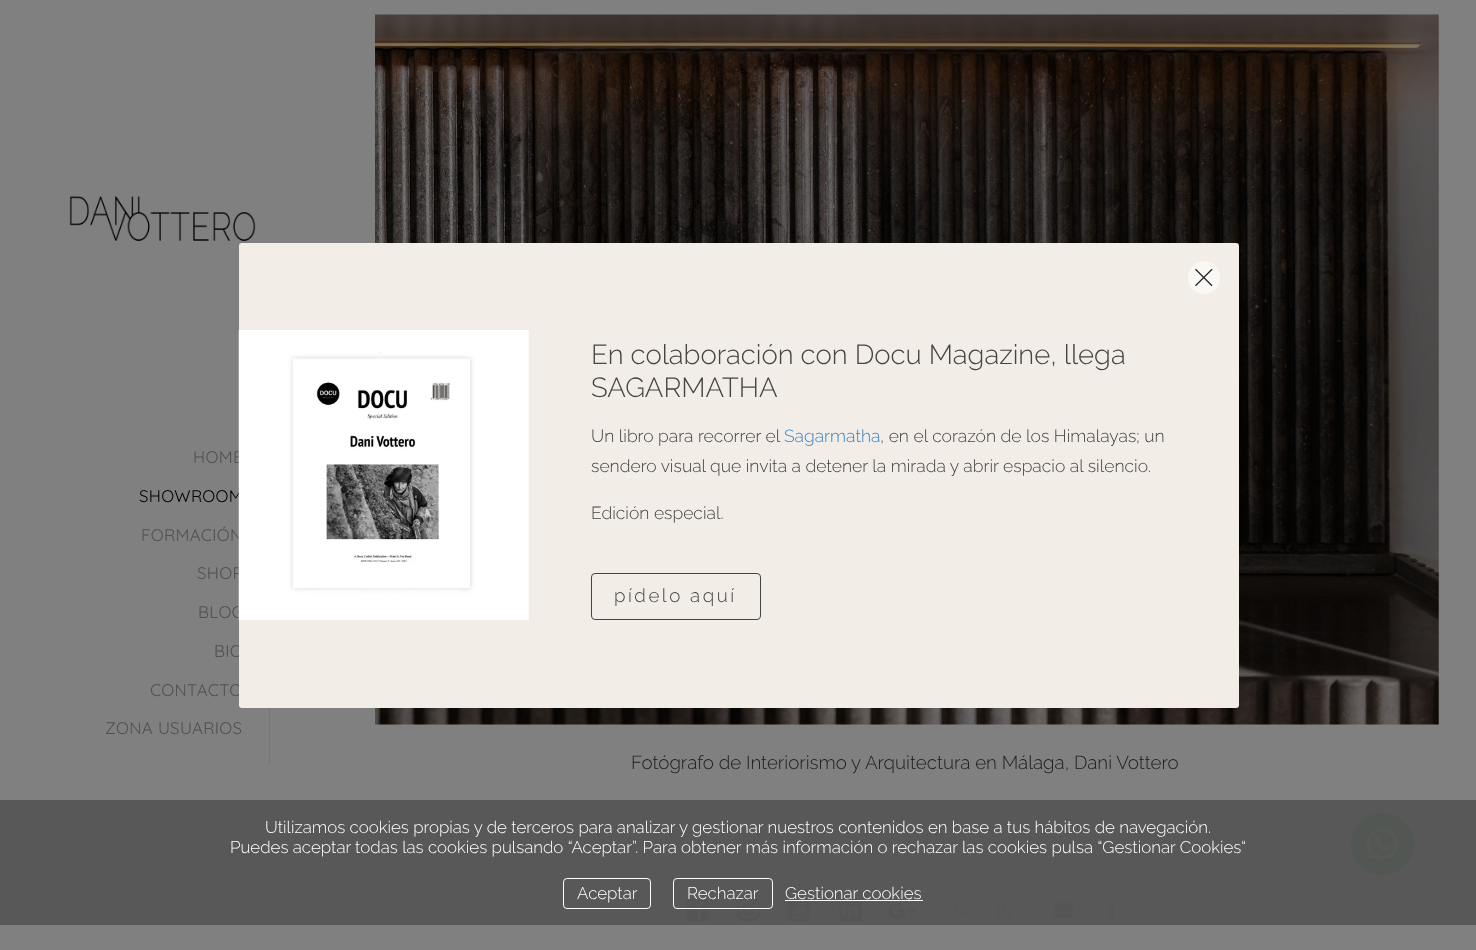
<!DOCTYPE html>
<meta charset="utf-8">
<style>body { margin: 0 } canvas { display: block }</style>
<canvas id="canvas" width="1476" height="950"></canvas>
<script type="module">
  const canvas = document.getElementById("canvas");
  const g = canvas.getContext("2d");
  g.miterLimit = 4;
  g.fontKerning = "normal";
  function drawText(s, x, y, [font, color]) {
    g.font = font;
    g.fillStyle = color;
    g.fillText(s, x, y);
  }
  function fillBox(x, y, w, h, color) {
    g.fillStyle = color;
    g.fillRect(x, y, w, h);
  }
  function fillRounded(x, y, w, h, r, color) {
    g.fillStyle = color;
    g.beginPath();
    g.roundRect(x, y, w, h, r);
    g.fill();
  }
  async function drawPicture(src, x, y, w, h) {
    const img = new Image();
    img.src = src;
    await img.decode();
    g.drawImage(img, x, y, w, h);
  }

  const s1 = ["300 16.88px Quicksand", "#515151"];
  const s2 = ["300 16.88px Quicksand", "#000000"];
  const s3 = ["300 27.5px Raleway", "#444444"];
  const s4 = ["300 17.5px Raleway", "#444444"];
  const s5 = ["300 17.5px Raleway", "#3984C6"];
  const s6 = ["300 18.75px Raleway", "#444444"];
  const s7 = ["300 18.75px Raleway", "#211A1A"];
  const s8 = ["300 16.88px Raleway", "#FFFFFF"];

  fillBox(0, 0, 1476, 950, "#808080");
  fillBox(0, 800, 1476, 125, "#585858");
  await drawPicture("pic1.png", 69, 196, 187, 46);
  fillBox(269, 708, 1, 56, "#767676");
  g.letterSpacing = "0.3px";
  drawText("HOME", 193, 463, s1);
  drawText("SHOWROOM", 139, 502, s2);
  drawText("FORMACIÓN", 141, 541, s1);
  drawText("SHOP", 197, 579, s1);
  drawText("BLOG", 198, 618, s1);
  drawText("BIO", 214, 657, s1);
  drawText("CONTACTO", 150, 696, s1);
  drawText("ZONA USUARIOS", 105, 734, s1);
  await drawPicture("pic4.png", 375, 14, 1064, 711);
  fillRounded(239, 243, 1000, 465, 3, "#F3EDE7");
  fillRounded(1188, 261, 32, 33, 16, "#FAF8F5");
  await drawPicture("pic2.png", 1195, 269, 18, 17);
  await drawPicture("pic3.png", 238, 330, 291, 290);
  g.letterSpacing = "0px";
  drawText("En colaboración con Docu Magazine, llega", 591, 364, s3);
  drawText("SAGARMATHA", 591, 397, s3);
  drawText("Un libro para recorrer el", 591, 442, s4);
  drawText("Sagarmatha", 784, 442, s5);
  drawText(", en el corazón de los Himalayas; un", 880, 442, s4);
  drawText("sendero visual que invita a detener la mirada y abrir espacio al silencio.", 591, 472, s4);
  drawText("Edición especial.", 591, 519, s4);
  g.beginPath();
  g.roundRect(591.5, 573.5, 169, 46, 3.5);
  g.strokeStyle = "#444444";
  g.stroke();
  g.letterSpacing = "2.5px";
  drawText("pídelo aquí", 614, 602, s6);
  g.letterSpacing = "0px";
  drawText("Fotógrafo de Interiorismo y Arquitectura en Málaga, Dani Vottero", 631, 769, s7);
  await drawPicture("pic5.png", 685, 898, 24, 23);
  await drawPicture("pic6.png", 736, 898, 24, 23);
  await drawPicture("pic7.png", 788, 898, 23, 23);
  await drawPicture("pic8.png", 839, 898, 23, 23);
  await drawPicture("pic9.png", 889, 902, 26, 17);
  await drawPicture("pic10.png", 953, 902, 16, 16);
  await drawPicture("pic11.png", 996, 901, 15, 18);
  await drawPicture("pic12.png", 1053, 903, 20, 15);
  g.fillStyle = "#555756";
  g.beginPath();
  g.roundRect(1108, 903, 6, 15, [3, 0, 0, 3]);
  g.fill();
  drawText("Utilizamos cookies propias y de terceros para analizar y gestionar nuestros contenidos en base a tus hábitos de navegación.", 265, 833, s8);
  drawText("Puedes aceptar todas las cookies pulsando “Aceptar”. Para obtener más información o rechazar las cookies pulsa “Gestionar Cookies“", 230, 853, s8);
  g.beginPath();
  g.roundRect(563.5, 878.5, 87, 30, 3.5);
  g.strokeStyle = "#FFFFFF";
  g.stroke();
  drawText("Aceptar", 577, 899, s8);
  g.beginPath();
  g.roundRect(673.5, 878.5, 99, 30, 3.5);
  g.stroke();
  drawText("Rechazar", 687, 899, s8);
  drawText("Gestionar cookies", 785, 899, s8);
  fillBox(785, 900, 138, 1, "#FFFFFF");
  fillRounded(1351, 813, 63, 62, 31, "#535754");
  await drawPicture("pic13.png", 1366, 828, 33, 32);
</script>
